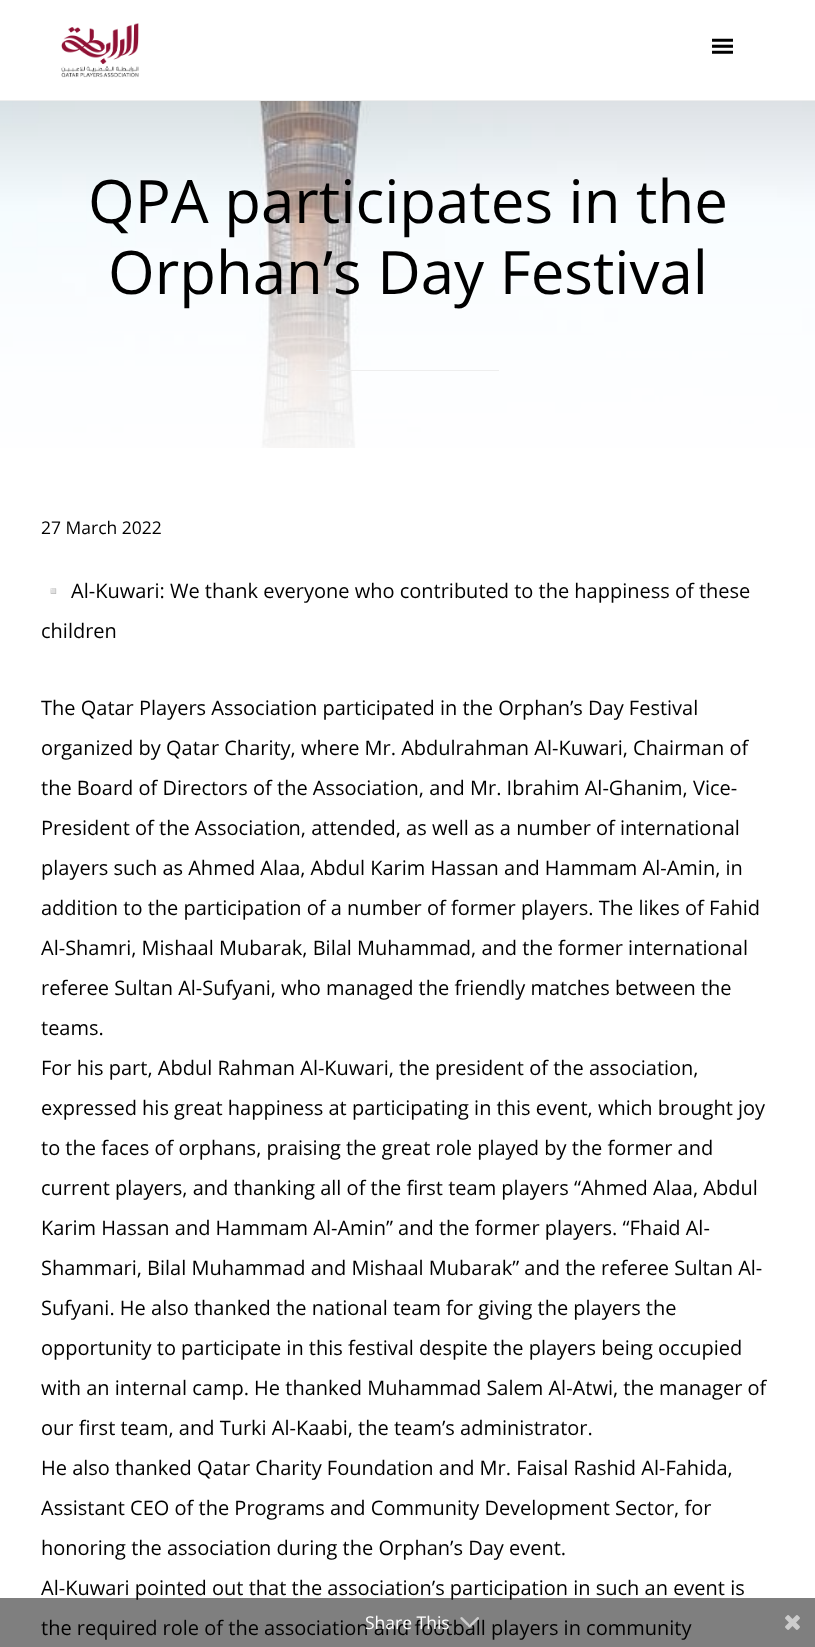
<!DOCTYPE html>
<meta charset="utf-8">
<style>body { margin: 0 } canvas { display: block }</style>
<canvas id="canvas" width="815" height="1647"></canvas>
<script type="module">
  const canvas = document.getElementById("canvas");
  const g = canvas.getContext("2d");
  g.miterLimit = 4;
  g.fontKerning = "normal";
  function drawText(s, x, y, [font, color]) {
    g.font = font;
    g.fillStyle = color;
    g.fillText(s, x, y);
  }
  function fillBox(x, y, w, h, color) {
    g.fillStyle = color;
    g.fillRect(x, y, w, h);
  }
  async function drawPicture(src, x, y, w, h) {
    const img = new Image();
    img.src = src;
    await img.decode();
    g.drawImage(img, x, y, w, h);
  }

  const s1 = ["60px Open Sans", "#000000"];
  const s2 = ["17.5px Open Sans", "#000000"];
  const s3 = ["20px Noto Color Emoji", "#000000"];
  const s4 = ["20px Open Sans", "#000000"];
  const s5 = ["17.5px Open Sans", "#FFFFFF"];

  fillBox(0, 0, 815, 1647, "#FFFFFF");
  fillBox(0, 100, 815, 1, "#EEEEEE");
  await drawPicture("pic1.png", 61, 23, 78, 55);
  await drawPicture("pic2.png", 712, 38, 21, 16);
  await drawPicture("pic3.png", 0, 101, 815, 347);
  drawText("QPA participates in the", 88, 223, s1);
  drawText("Orphan’s Day Festival", 108, 294, s1);
  fillBox(316, 370, 183, 1, "#EEEEEE");
  drawText("27 March 2022", 41, 534, s2);
  drawText("▫️", 41, 598, s3);
  drawText("Al-Kuwari: We thank everyone who contributed to the happiness of these", 71, 598, s4);
  drawText("children", 41, 638, s4);
  drawText("The Qatar Players Association participated in the Orphan’s Day Festival", 41, 715, s4);
  drawText("organized by Qatar Charity, where Mr. Abdulrahman Al-Kuwari, Chairman of", 41, 755, s4);
  drawText("the Board of Directors of the Association, and Mr. Ibrahim Al-Ghanim, Vice-", 41, 795, s4);
  drawText("President of the Association, attended, as well as a number of international", 41, 835, s4);
  drawText("players such as Ahmed Alaa, Abdul Karim Hassan and Hammam Al-Amin, in", 41, 875, s4);
  drawText("addition to the participation of a number of former players. The likes of Fahid", 41, 915, s4);
  drawText("Al-Shamri, Mishaal Mubarak, Bilal Muhammad, and the former international", 41, 955, s4);
  drawText("referee Sultan Al-Sufyani, who managed the friendly matches between the", 41, 995, s4);
  drawText("teams.", 41, 1035, s4);
  drawText("For his part, Abdul Rahman Al-Kuwari, the president of the association,", 41, 1075, s4);
  drawText("expressed his great happiness at participating in this event, which brought joy", 41, 1115, s4);
  drawText("to the faces of orphans, praising the great role played by the former and", 41, 1155, s4);
  drawText("current players, and thanking all of the first team players “Ahmed Alaa, Abdul", 41, 1195, s4);
  drawText("Karim Hassan and Hammam Al-Amin” and the former players. “Fhaid Al-", 41, 1235, s4);
  drawText("Shammari, Bilal Muhammad and Mishaal Mubarak” and the referee Sultan Al-", 41, 1275, s4);
  drawText("Sufyani. He also thanked the national team for giving the players the", 41, 1315, s4);
  drawText("opportunity to participate in this festival despite the players being occupied", 41, 1355, s4);
  drawText("with an internal camp. He thanked Muhammad Salem Al-Atwi, the manager of", 41, 1395, s4);
  drawText("our first team, and Turki Al-Kaabi, the team’s administrator.", 41, 1435, s4);
  drawText("He also thanked Qatar Charity Foundation and Mr. Faisal Rashid Al-Fahida,", 41, 1475, s4);
  drawText("Assistant CEO of the Programs and Community Development Sector, for", 41, 1515, s4);
  drawText("honoring the association during the Orphan’s Day event.", 41, 1555, s4);
  drawText("Al-Kuwari pointed out that the association’s participation in such an event is", 41, 1595, s4);
  drawText("the required role of the association and football players in community", 41, 1635, s4);
  fillBox(0, 1598, 815, 49, "rgba(0, 0, 0, 0.5)");
  drawText("Share This", 365, 1629, s5);
  await drawPicture("pic4.png", 460, 1617, 19, 11);
  await drawPicture("pic5.png", 785, 1615, 15, 15);
</script>
